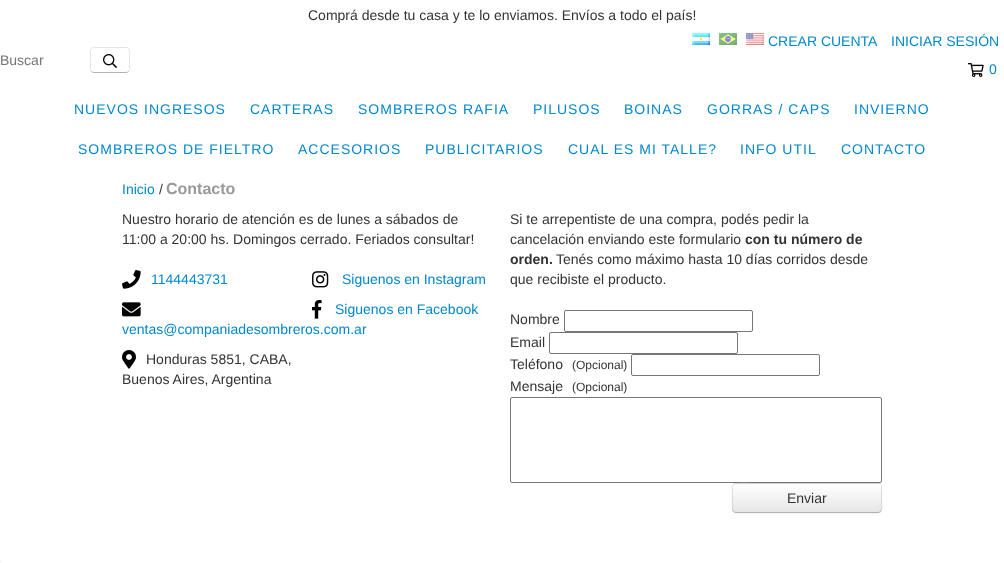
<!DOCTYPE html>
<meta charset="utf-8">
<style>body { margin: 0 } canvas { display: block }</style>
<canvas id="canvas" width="1004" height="563"></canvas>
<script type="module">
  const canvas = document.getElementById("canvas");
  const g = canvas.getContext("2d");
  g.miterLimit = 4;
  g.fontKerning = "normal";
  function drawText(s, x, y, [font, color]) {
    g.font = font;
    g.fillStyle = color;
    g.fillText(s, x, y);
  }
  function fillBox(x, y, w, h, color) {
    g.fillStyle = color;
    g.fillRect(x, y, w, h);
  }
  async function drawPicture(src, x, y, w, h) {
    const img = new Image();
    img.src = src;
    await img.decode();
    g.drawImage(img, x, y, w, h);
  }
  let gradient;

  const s1 = ["14px Liberation Sans", "#333333"];
  const s2 = ["14px Liberation Sans", "#757575"];
  const s3 = ["14px Liberation Sans", "#0088CC"];
  const s4 = ["bold 16px Liberation Sans", "#999999"];
  const s5 = ["bold 14px Liberation Sans", "#333333"];
  const s6 = ["12px Liberation Sans", "#333333"];

  fillBox(0, 0, 1004, 563, "#FFFFFF");
  drawText("Comprá desde tu casa y te lo enviamos. Envíos a todo el país!", 308, 20, s1);
  drawText("Buscar", 0, 65, s2);
  g.beginPath();
  g.moveTo(128.5, 71.5);
  g.bezierCurveTo(128, 72, 127, 72.5, 126, 72.5);
  g.lineTo(94, 72.5);
  g.bezierCurveTo(93, 72.5, 92, 72, 91.5, 71.5);
  g.strokeStyle = "#B3B3B3";
  g.stroke();
  g.beginPath();
  g.moveTo(91.5, 71.5);
  g.bezierCurveTo(91, 71, 90.5, 70, 90.5, 69);
  g.lineTo(90.5, 51);
  g.bezierCurveTo(90.5, 50, 91, 49, 91.5, 48.5);
  g.bezierCurveTo(92, 48, 93, 47.5, 94, 47.5);
  g.lineTo(126, 47.5);
  g.bezierCurveTo(127, 47.5, 128, 48, 128.5, 48.5);
  g.bezierCurveTo(129, 49, 129.5, 50, 129.5, 51);
  g.lineTo(129.5, 69);
  g.bezierCurveTo(129.5, 70, 129, 71, 128.5, 71.5);
  g.strokeStyle = "rgba(0, 0, 0, 0.1)";
  g.stroke();
  await drawPicture("pic1.png", 103, 54, 14, 14);
  await drawPicture("pic2.png", 692, 33, 18, 12);
  await drawPicture("pic3.png", 719, 33, 18, 12);
  await drawPicture("pic4.png", 746, 33, 18, 12);
  drawText("CREAR CUENTA", 768, 46, s3);
  drawText("INICIAR SESIÓN", 891, 46, s3);
  await drawPicture("pic5.png", 968, 63, 16, 14);
  g.letterSpacing = "1px";
  drawText("0", 989, 74, s3);
  drawText("NUEVOS INGRESOS", 74, 114, s3);
  drawText("CARTERAS", 250, 114, s3);
  drawText("SOMBREROS RAFIA", 358, 114, s3);
  drawText("PILUSOS", 533, 114, s3);
  drawText("BOINAS", 624, 114, s3);
  drawText("GORRAS / CAPS", 707, 114, s3);
  drawText("INVIERNO", 854, 114, s3);
  drawText("SOMBREROS DE FIELTRO", 78, 154, s3);
  drawText("ACCESORIOS", 298, 154, s3);
  drawText("PUBLICITARIOS", 425, 154, s3);
  drawText("CUAL ES MI TALLE?", 568, 154, s3);
  drawText("INFO UTIL", 740, 154, s3);
  drawText("CONTACTO", 841, 154, s3);
  g.letterSpacing = "0px";
  drawText("Inicio", 122, 194, s3);
  drawText("/", 159, 194, s1);
  drawText("Contacto", 166, 194, s4);
  drawText("Nuestro horario de atención es de lunes a sábados de", 122, 224, s1);
  drawText("11:00 a 20:00 hs. Domingos cerrado. Feriados consultar!", 122, 244, s1);
  await drawPicture("pic6.png", 122, 270, 19, 19);
  drawText("1144443731", 151, 284, s3);
  await drawPicture("pic7.png", 122, 302, 19, 15);
  drawText("ventas@companiadesombreros.com.ar", 122, 334, s3);
  await drawPicture("pic8.png", 122, 350, 14, 19);
  drawText("Honduras 5851, CABA,", 146, 364, s1);
  drawText("Buenos Aires, Argentina", 122, 384, s1);
  await drawPicture("pic9.png", 312, 271, 17, 17);
  drawText("Siguenos en Instagram", 342, 284, s3);
  await drawPicture("pic10.png", 312, 300, 10, 19);
  drawText("Siguenos en Facebook", 335, 314, s3);
  drawText("Si te arrepentiste de una compra, podés pedir la", 510, 224, s1);
  drawText("cancelación enviando este formulario", 510, 244, s1);
  drawText("con tu número de", 745, 244, s5);
  drawText("orden.", 510, 264, s5);
  drawText("Tenés como máximo hasta 10 días corridos desde", 556, 264, s1);
  drawText("que recibiste el producto.", 510, 284, s1);
  drawText("Nombre", 510, 324, s1);
  g.beginPath();
  g.roundRect(564.5, 310.5, 188, 21, 1.5);
  g.strokeStyle = "#767676";
  g.stroke();
  drawText("Email", 510, 347, s1);
  g.beginPath();
  g.roundRect(549.5, 332.5, 188, 21, 1.5);
  g.stroke();
  drawText("Teléfono", 510, 369, s1);
  drawText("(Opcional)", 572, 369, s6);
  g.beginPath();
  g.roundRect(631.5, 354.5, 188, 21, 1.5);
  g.stroke();
  drawText("Mensaje", 510, 391, s1);
  drawText("(Opcional)", 572, 391, s6);
  g.beginPath();
  g.roundRect(510.5, 397.5, 371, 85, 1.5);
  g.stroke();
  g.fillStyle = "rgba(0, 0, 0, 0.05)";
  g.filter = "blur(1px)";
  g.beginPath();
  g.roundRect(732, 484, 150, 30, 4);
  g.fill();
  g.filter = "none";
  g.save();
  g.beginPath();
  g.roundRect(732, 483, 150, 30, 4);
  g.clip();
  gradient = g.createLinearGradient(807, 456, 807, 484);
  gradient.addColorStop(0, "#FFFFFF");
  gradient.addColorStop(1, "#E6E6E6");
  g.fillStyle = gradient;
  g.fillRect(732, 483, 150, 1);
  gradient = g.createLinearGradient(807, 484, 807, 512);
  gradient.addColorStop(0, "#FFFFFF");
  gradient.addColorStop(1, "#E6E6E6");
  g.fillStyle = gradient;
  g.fillRect(732, 484, 150, 28);
  g.restore();
  g.fillStyle = "rgba(255, 255, 255, 0.2)";
  g.beginPath();
  g.moveTo(736, 485);
  g.lineTo(878, 485);
  g.bezierCurveTo(880, 485, 881, 486, 881, 488);
  g.bezierCurveTo(881, 486, 881, 485, 879, 484);
  g.lineTo(760, 484);
  g.bezierCurveTo(752, 484, 733, 479, 733, 488);
  g.bezierCurveTo(733, 486, 734, 485, 736, 485);
  g.closePath();
  g.fill();
  g.beginPath();
  g.moveTo(880.5, 511.5);
  g.bezierCurveTo(880, 512, 879, 512.5, 878, 512.5);
  g.lineTo(736, 512.5);
  g.bezierCurveTo(735, 512.5, 734, 512, 733.5, 511.5);
  g.strokeStyle = "#B3B3B3";
  g.stroke();
  g.beginPath();
  g.moveTo(733.5, 511.5);
  g.bezierCurveTo(731.5, 509.5, 732.5, 501, 732.5, 498);
  g.lineTo(732.5, 490.5);
  g.bezierCurveTo(732.5, 488, 732, 483.5, 736, 483.5);
  g.lineTo(878, 483.5);
  g.bezierCurveTo(882, 483.5, 881.5, 488, 881.5, 490.5);
  g.lineTo(881.5, 498);
  g.bezierCurveTo(881.5, 501, 882.5, 509.5, 880.5, 511.5);
  g.strokeStyle = "rgba(0, 0, 0, 0.1)";
  g.stroke();
  drawText("Enviar", 787, 503, s1);
  fillBox(0, 561, 2, 2, "#F5F5F5");
</script>
